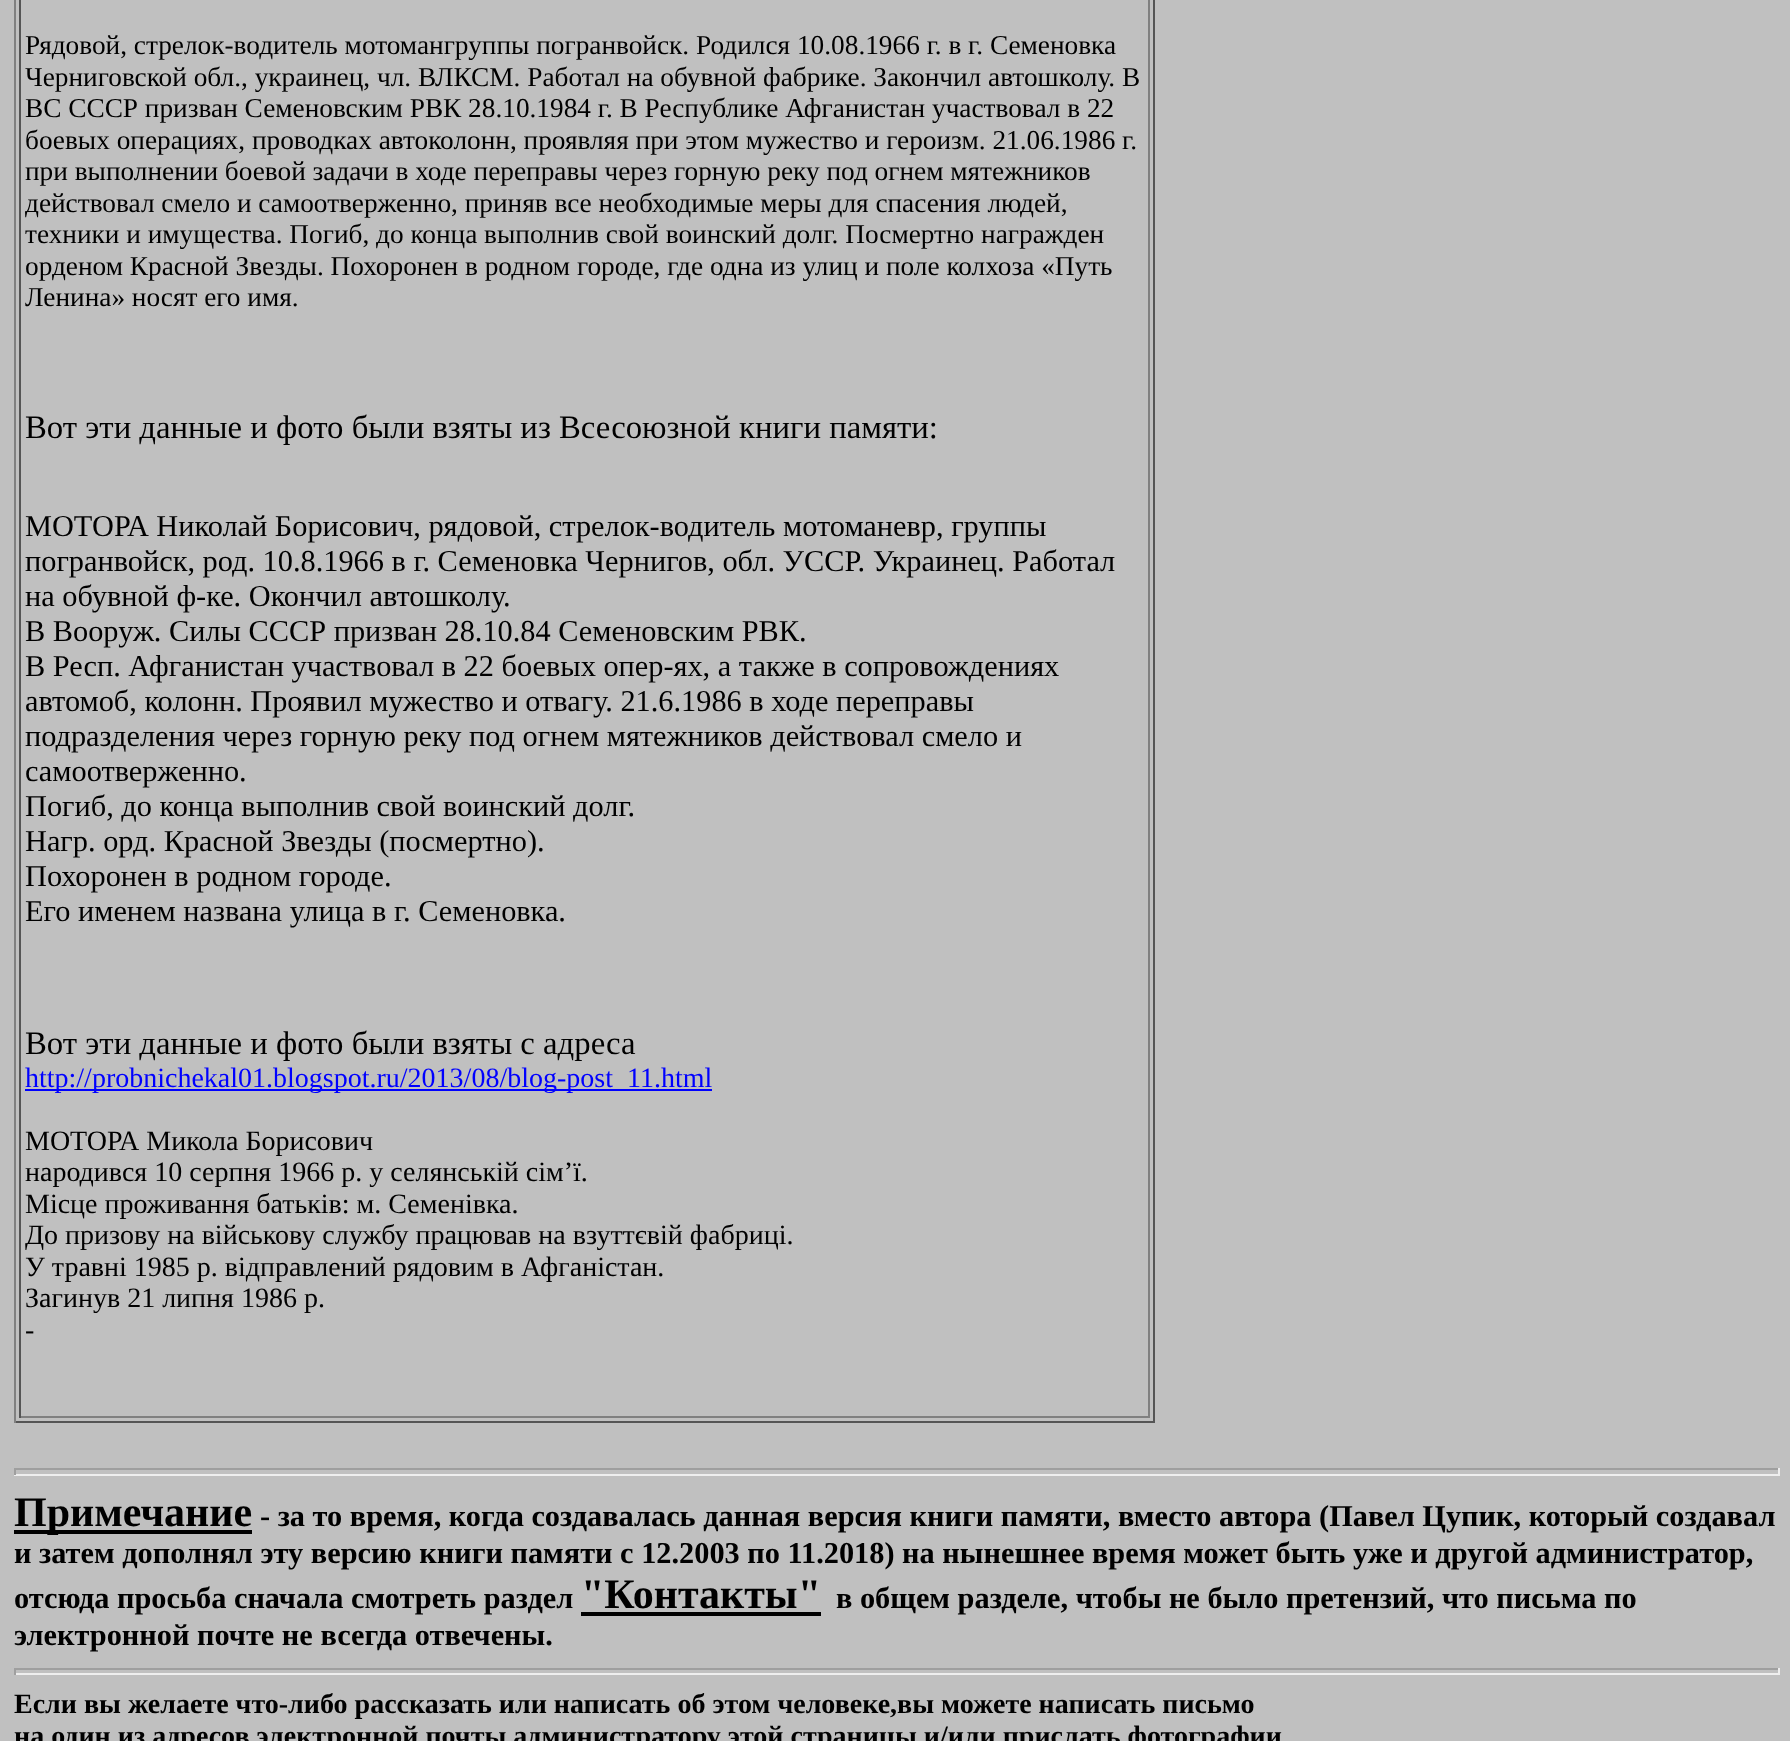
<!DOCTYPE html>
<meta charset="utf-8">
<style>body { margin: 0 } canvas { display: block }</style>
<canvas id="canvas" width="1790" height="1741"></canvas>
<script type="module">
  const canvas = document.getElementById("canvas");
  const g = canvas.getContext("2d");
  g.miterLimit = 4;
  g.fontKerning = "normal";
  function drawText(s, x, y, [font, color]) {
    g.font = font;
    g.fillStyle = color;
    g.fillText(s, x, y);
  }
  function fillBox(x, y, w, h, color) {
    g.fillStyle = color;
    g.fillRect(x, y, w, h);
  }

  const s1 = ["27.3px Liberation Serif", "#000000"];
  const s2 = ["32.75px Liberation Serif", "#000000"];
  const s3 = ["30.33px Liberation Serif", "#000000"];
  const s4 = ["28px Liberation Serif", "#0000FF"];
  const s5 = ["28px Liberation Serif", "#000000"];
  const s6 = ["bold 42px Liberation Serif", "#000000"];
  const s7 = ["bold 30.33px Liberation Serif", "#000000"];
  const s8 = ["bold 28px Liberation Serif", "#000000"];

  fillBox(0, 0, 1790, 1741, "#C0C0C0");
  fillBox(1153, 0, 2, 1423, "#555555");
  fillBox(14, 1421, 1141, 2, "#555555");
  fillBox(14, 0, 2, 1423, "#808080");
  fillBox(1148, 0, 2, 1418, "#808080");
  fillBox(19, 1416, 1131, 2, "#808080");
  fillBox(19, 0, 2, 1418, "#555555");
  drawText("Рядовой, стрелок-водитель мотомангруппы погранвойск. Родился 10.08.1966 г. в г. Семеновка", 25, 54, s1);
  drawText("Черниговской обл., украинец, чл. ВЛКСМ. Работал на обувной фабрике. Закончил автошколу. В", 25, 86, s1);
  drawText("ВС СССР призван Семеновским РВК 28.10.1984 г. В Республике Афганистан участвовал в 22", 25, 117, s1);
  drawText("боевых операциях, проводках автоколонн, проявляя при этом мужество и героизм. 21.06.1986 г.", 25, 149, s1);
  drawText("при выполнении боевой задачи в ходе переправы через горную реку под огнем мятежников", 25, 180, s1);
  drawText("действовал смело и самоотверженно, приняв все необходимые меры для спасения людей,", 25, 212, s1);
  drawText("техники и имущества. Погиб, до конца выполнив свой воинский долг. Посмертно награжден", 25, 243, s1);
  drawText("орденом Красной Звезды. Похоронен в родном городе, где одна из улиц и поле колхоза «Путь", 25, 275, s1);
  drawText("Ленина» носят его имя.", 25, 306, s1);
  drawText("Вот эти данные и фото были взяты из Всесоюзной книги памяти:", 25, 438, s2);
  drawText("МОТОРА Николай Борисович, рядовой, стрелок-водитель мотоманевр, группы", 25, 536, s3);
  drawText("погранвойск, род. 10.8.1966 в г. Семеновка Чернигов, обл. УССР. Украинец. Работал", 25, 571, s3);
  drawText("на обувной ф-ке. Окончил автошколу.", 25, 606, s3);
  drawText("В Вооруж. Силы СССР призван 28.10.84 Семеновским РВК.", 25, 641, s3);
  drawText("В Респ. Афганистан участвовал в 22 боевых опер-ях, а также в сопровождениях", 25, 676, s3);
  drawText("автомоб, колонн. Проявил мужество и отвагу. 21.6.1986 в ходе переправы", 25, 711, s3);
  drawText("подразделения через горную реку под огнем мятежников действовал смело и", 25, 746, s3);
  drawText("самоотверженно.", 25, 781, s3);
  drawText("Погиб, до конца выполнив свой воинский долг.", 25, 816, s3);
  drawText("Нагр. орд. Красной Звезды (посмертно).", 25, 851, s3);
  drawText("Похоронен в родном городе.", 25, 886, s3);
  drawText("Его именем названа улица в г. Семеновка.", 25, 921, s3);
  drawText("Вот эти данные и фото были взяты с адреса", 25, 1054, s2);
  fillBox(25, 1089, 687, 2, "#0000FF");
  drawText("http://probnichekal01.blogspot.ru/2013/08/blog-post_11.html", 25, 1087, s4);
  drawText("МОТОРА Микола Борисович", 25, 1150, s5);
  drawText("народився 10 серпня 1966 р. у селянській сім’ї.", 25, 1181, s5);
  drawText("Місце проживання батьків: м. Семенівка.", 25, 1213, s5);
  drawText("До призову на військову службу працював на взуттєвій фабриці.", 25, 1244, s5);
  drawText("У травні 1985 р. відправлений рядовим в Афганістан.", 25, 1276, s5);
  drawText("Загинув 21 липня 1986 р.", 25, 1307, s5);
  drawText("-", 25, 1339, s5);
  fillBox(14, 1468, 1766, 2, "#9F9F9F");
  fillBox(1778, 1468, 2, 7, "#EEEEEE");
  fillBox(14, 1474, 1766, 2, "#EEEEEE");
  fillBox(14, 1468, 2, 7, "#9F9F9F");
  fillBox(14, 1530, 238, 4, "#000000");
  drawText("Примечание", 14, 1526, s6);
  drawText("- за то время, когда создавалась данная версия книги памяти, вместо автора (Павел Цупик, который создавал", 260, 1526, s7);
  drawText("и затем дополнял эту версию книги памяти с 12.2003 по 11.2018) на нынешнее время может быть уже и другой администратор,", 14, 1563, s7);
  drawText("отсюда просьба сначала смотреть раздел", 14, 1608, s7);
  fillBox(581, 1612, 240, 4, "#000000");
  drawText("\"Контакты\"", 581, 1608, s6);
  drawText("в общем разделе, чтобы не было претензий, что письма по", 836, 1608, s7);
  drawText("электронной почте не всегда отвечены.", 14, 1645, s7);
  fillBox(14, 1668, 1766, 2, "#9F9F9F");
  fillBox(1778, 1668, 2, 7, "#EEEEEE");
  fillBox(14, 1673, 1766, 2, "#EEEEEE");
  fillBox(14, 1668, 2, 7, "#9F9F9F");
  drawText("Если вы желаете что-либо рассказать или написать об этом человеке,вы можете написать письмо", 14, 1713, s8);
  drawText("на один из адресов электронной почты администратору этой страницы и/или прислать фотографии", 14, 1745, s8);
</script>
